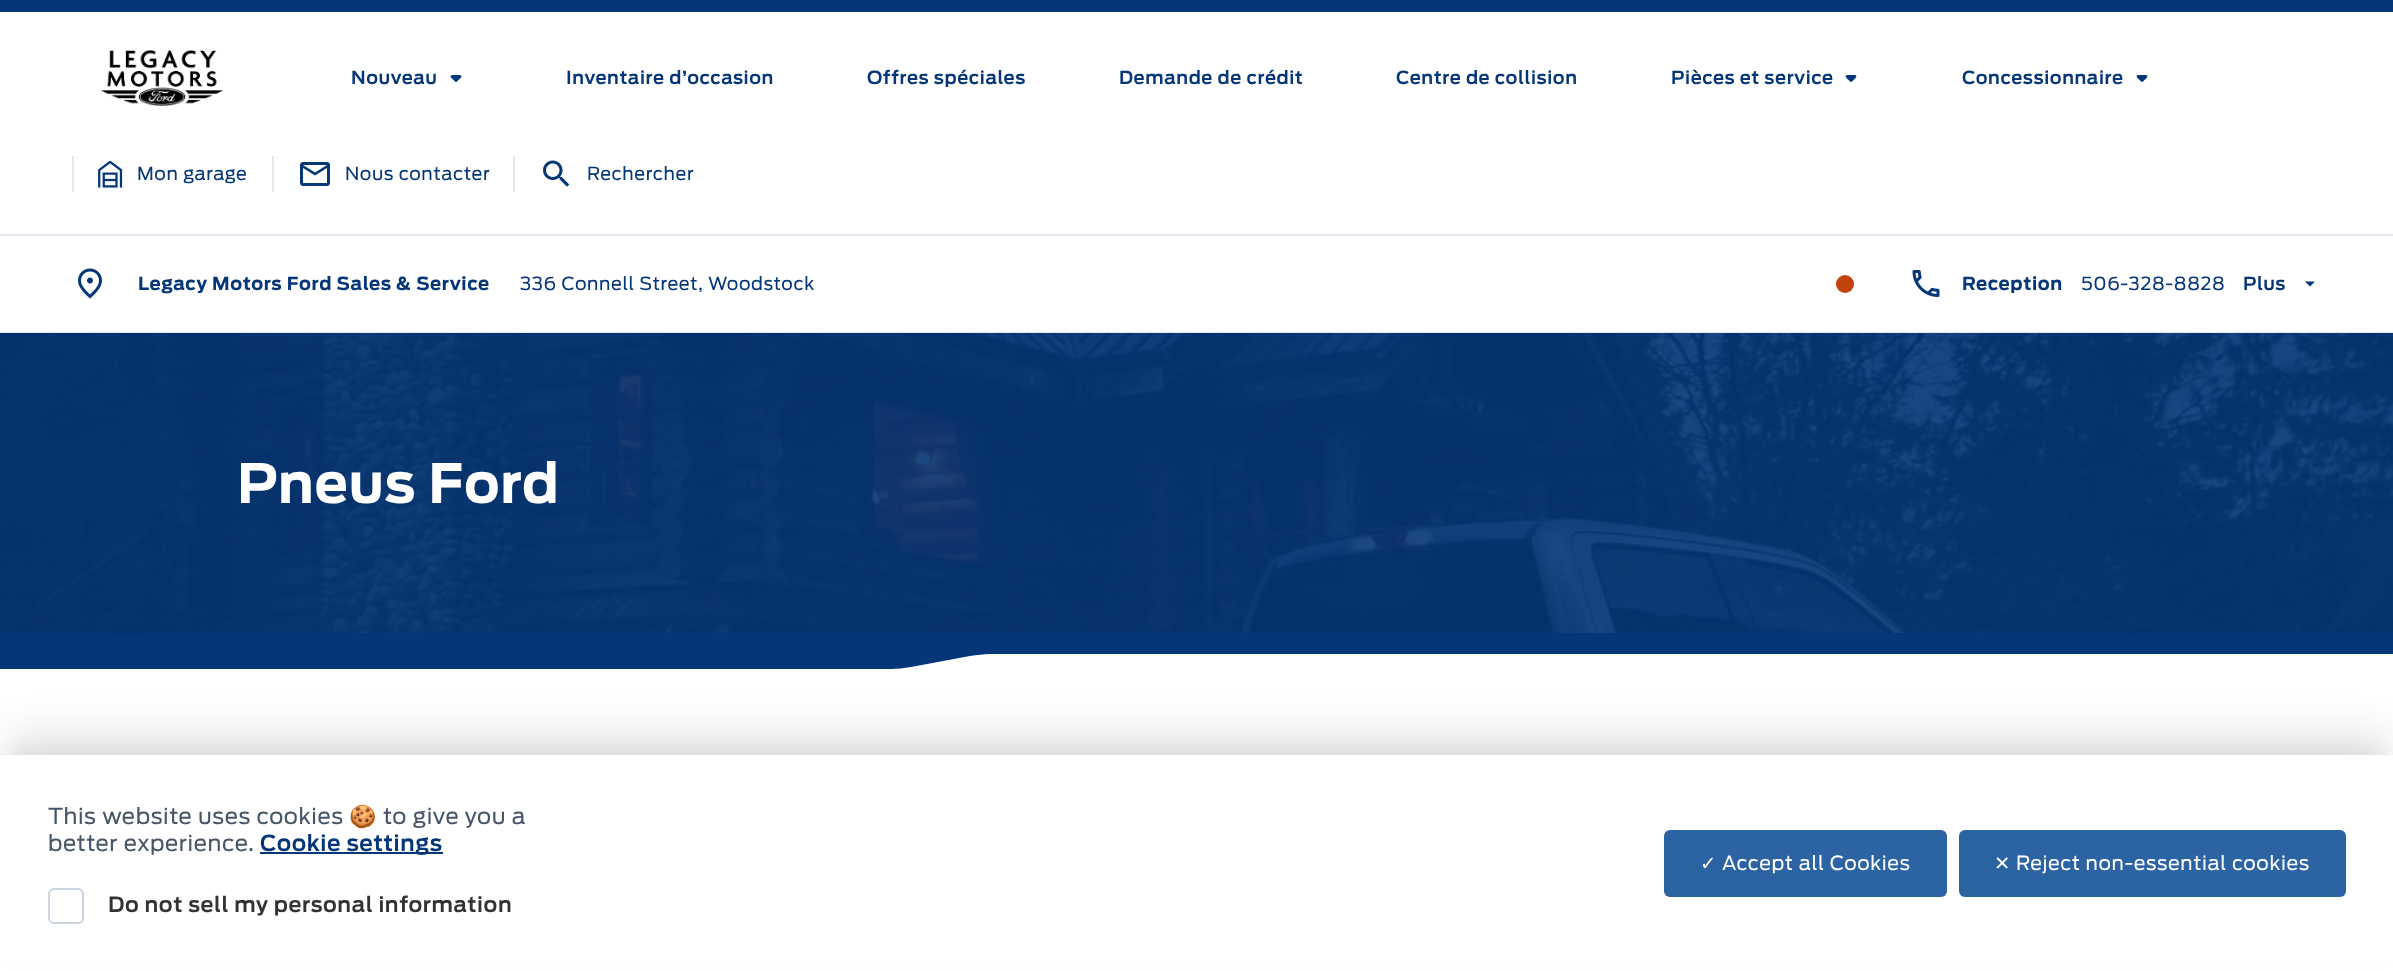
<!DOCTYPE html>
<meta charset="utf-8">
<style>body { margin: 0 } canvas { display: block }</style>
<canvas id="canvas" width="2393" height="971"></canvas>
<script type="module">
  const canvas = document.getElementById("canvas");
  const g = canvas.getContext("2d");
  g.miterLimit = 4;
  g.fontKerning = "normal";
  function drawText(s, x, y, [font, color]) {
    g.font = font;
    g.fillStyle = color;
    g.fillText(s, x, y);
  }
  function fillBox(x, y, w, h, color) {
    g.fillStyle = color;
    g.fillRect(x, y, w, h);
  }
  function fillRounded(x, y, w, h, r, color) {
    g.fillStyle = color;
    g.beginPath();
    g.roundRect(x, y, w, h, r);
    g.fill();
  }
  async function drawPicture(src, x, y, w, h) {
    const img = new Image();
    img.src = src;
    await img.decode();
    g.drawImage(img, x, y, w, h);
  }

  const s1 = ["600 18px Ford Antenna", "#053677"];
  const s2 = ["18px Ford Antenna", "#053677"];
  const s3 = ["bold 18px Ford Antenna", "#053677"];
  const s4 = ["bold 54px Ford Antenna", "#FFFFFF"];
  const s5 = ["22px Ford Antenna", "#475569"];
  const s6 = ["22px Noto Color Emoji", "#475569"];
  const s7 = ["600 22px Ford Antenna", "#053677"];
  const s8 = ["600 21px Ford Antenna", "#333333"];
  const s9 = ["19.5px DejaVu Sans", "#FFFFFF"];
  const s10 = ["19.5px Ford Antenna", "#FFFFFF"];

  fillBox(0, 0, 2393, 971, "#FFFFFF");
  fillBox(0, 0, 2393, 12, "#053677");
  await drawPicture("pic1.png", 101, 50, 122, 56);
  g.letterSpacing = "0.6px";
  drawText("Nouveau", 351, 84, s1);
  await drawPicture("pic2.png", 450, 75, 12, 7);
  drawText("Inventaire d’occasion", 566, 84, s1);
  drawText("Offres spéciales", 867, 84, s1);
  drawText("Demande de crédit", 1119, 84, s1);
  drawText("Centre de collision", 1396, 84, s1);
  drawText("Pièces et service", 1671, 84, s1);
  await drawPicture("pic2.png", 1845, 75, 12, 7);
  drawText("Concessionnaire", 1962, 84, s1);
  await drawPicture("pic2.png", 2136, 75, 12, 7);
  fillBox(72, 156, 2, 36, "#E5E7EB");
  await drawPicture("pic3.png", 98, 161, 25, 27);
  drawText("Mon garage", 137, 180, s2);
  fillBox(272, 156, 2, 36, "#E5E7EB");
  await drawPicture("pic4.png", 300, 162, 30, 24);
  drawText("Nous contacter", 345, 180, s2);
  fillBox(513, 156, 2, 36, "#E5E7EB");
  await drawPicture("pic5.png", 543, 160, 27, 27);
  drawText("Rechercher", 587, 180, s2);
  fillBox(0, 234, 2393, 2, "#E2E8F0");
  fillBox(0, 332, 2393, 1, "#E2E8F0");
  await drawPicture("pic6.png", 78, 268, 24, 31);
  drawText("Legacy Motors Ford Sales & Service", 138, 290, s3);
  drawText("336 Connell Street, Woodstock", 520, 290, s2);
  g.fillStyle = "#C2410C";
  g.beginPath();
  g.arc(1845, 284, 9, 0, Math.PI * 2);
  g.fill();
  await drawPicture("pic7.png", 1912, 270, 28, 27);
  drawText("Reception", 1962, 290, s3);
  drawText("506-328-8828", 2081, 290, s2);
  drawText("Plus", 2243, 290, s1);
  g.beginPath();
  g.moveTo(2305, 281.5);
  g.lineTo(2310, 286.5);
  g.lineTo(2315, 281.5);
  g.closePath();
  g.fill();
  await drawPicture("pic8.png", 0, 333, 2393, 300);
  drawText("Pneus Ford", 237, 503, s4);
  g.fillStyle = "#053677";
  g.beginPath();
  g.moveTo(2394, 654);
  g.lineTo(990, 654);
  g.bezierCurveTo(984, 654, 977, 655, 970, 656);
  g.lineTo(911, 667);
  g.bezierCurveTo(904, 668, 897, 669, 891, 669);
  g.lineTo(0, 669);
  g.lineTo(0, 633);
  g.lineTo(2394, 633);
  g.closePath();
  g.fill();
  g.fillStyle = "rgba(0, 0, 0, 0.04)";
  g.filter = "blur(7.5px)";
  g.beginPath();
  g.rect(8, 747, 2379, 203);
  g.fill();
  g.filter = "none";
  g.fillStyle = "rgba(0, 0, 0, 0.1)";
  g.filter = "blur(19px)";
  g.beginPath();
  g.rect(8, 732, 2379, 203);
  g.fill();
  g.filter = "none";
  fillBox(0, 755, 2393, 207, "#FFFFFF");
  drawText("This website uses cookies", 48, 824, s5);
  drawText("🍪", 349, 824, s6);
  drawText("to give you a", 383, 824, s5);
  drawText("better experience.", 48, 851, s5);
  fillBox(260, 852, 183, 2, "#053677");
  drawText("Cookie settings", 260, 851, s7);
  g.beginPath();
  g.roundRect(49, 889, 34, 34, 5);
  g.strokeStyle = "#CBD5E1";
  g.lineWidth = 2;
  g.stroke();
  drawText("Do not sell my personal information", 108, 912, s8);
  fillRounded(1664, 830, 283, 67, 6, "#2C63A2");
  drawText("✓", 1700, 870, s9);
  drawText("Accept all Cookies", 1722, 870, s10);
  fillRounded(1959, 830, 387, 67, 6, "#2C63A2");
  drawText("✕", 1994, 870, s9);
  drawText("Reject non-essential cookies", 2016, 870, s10);
</script>
